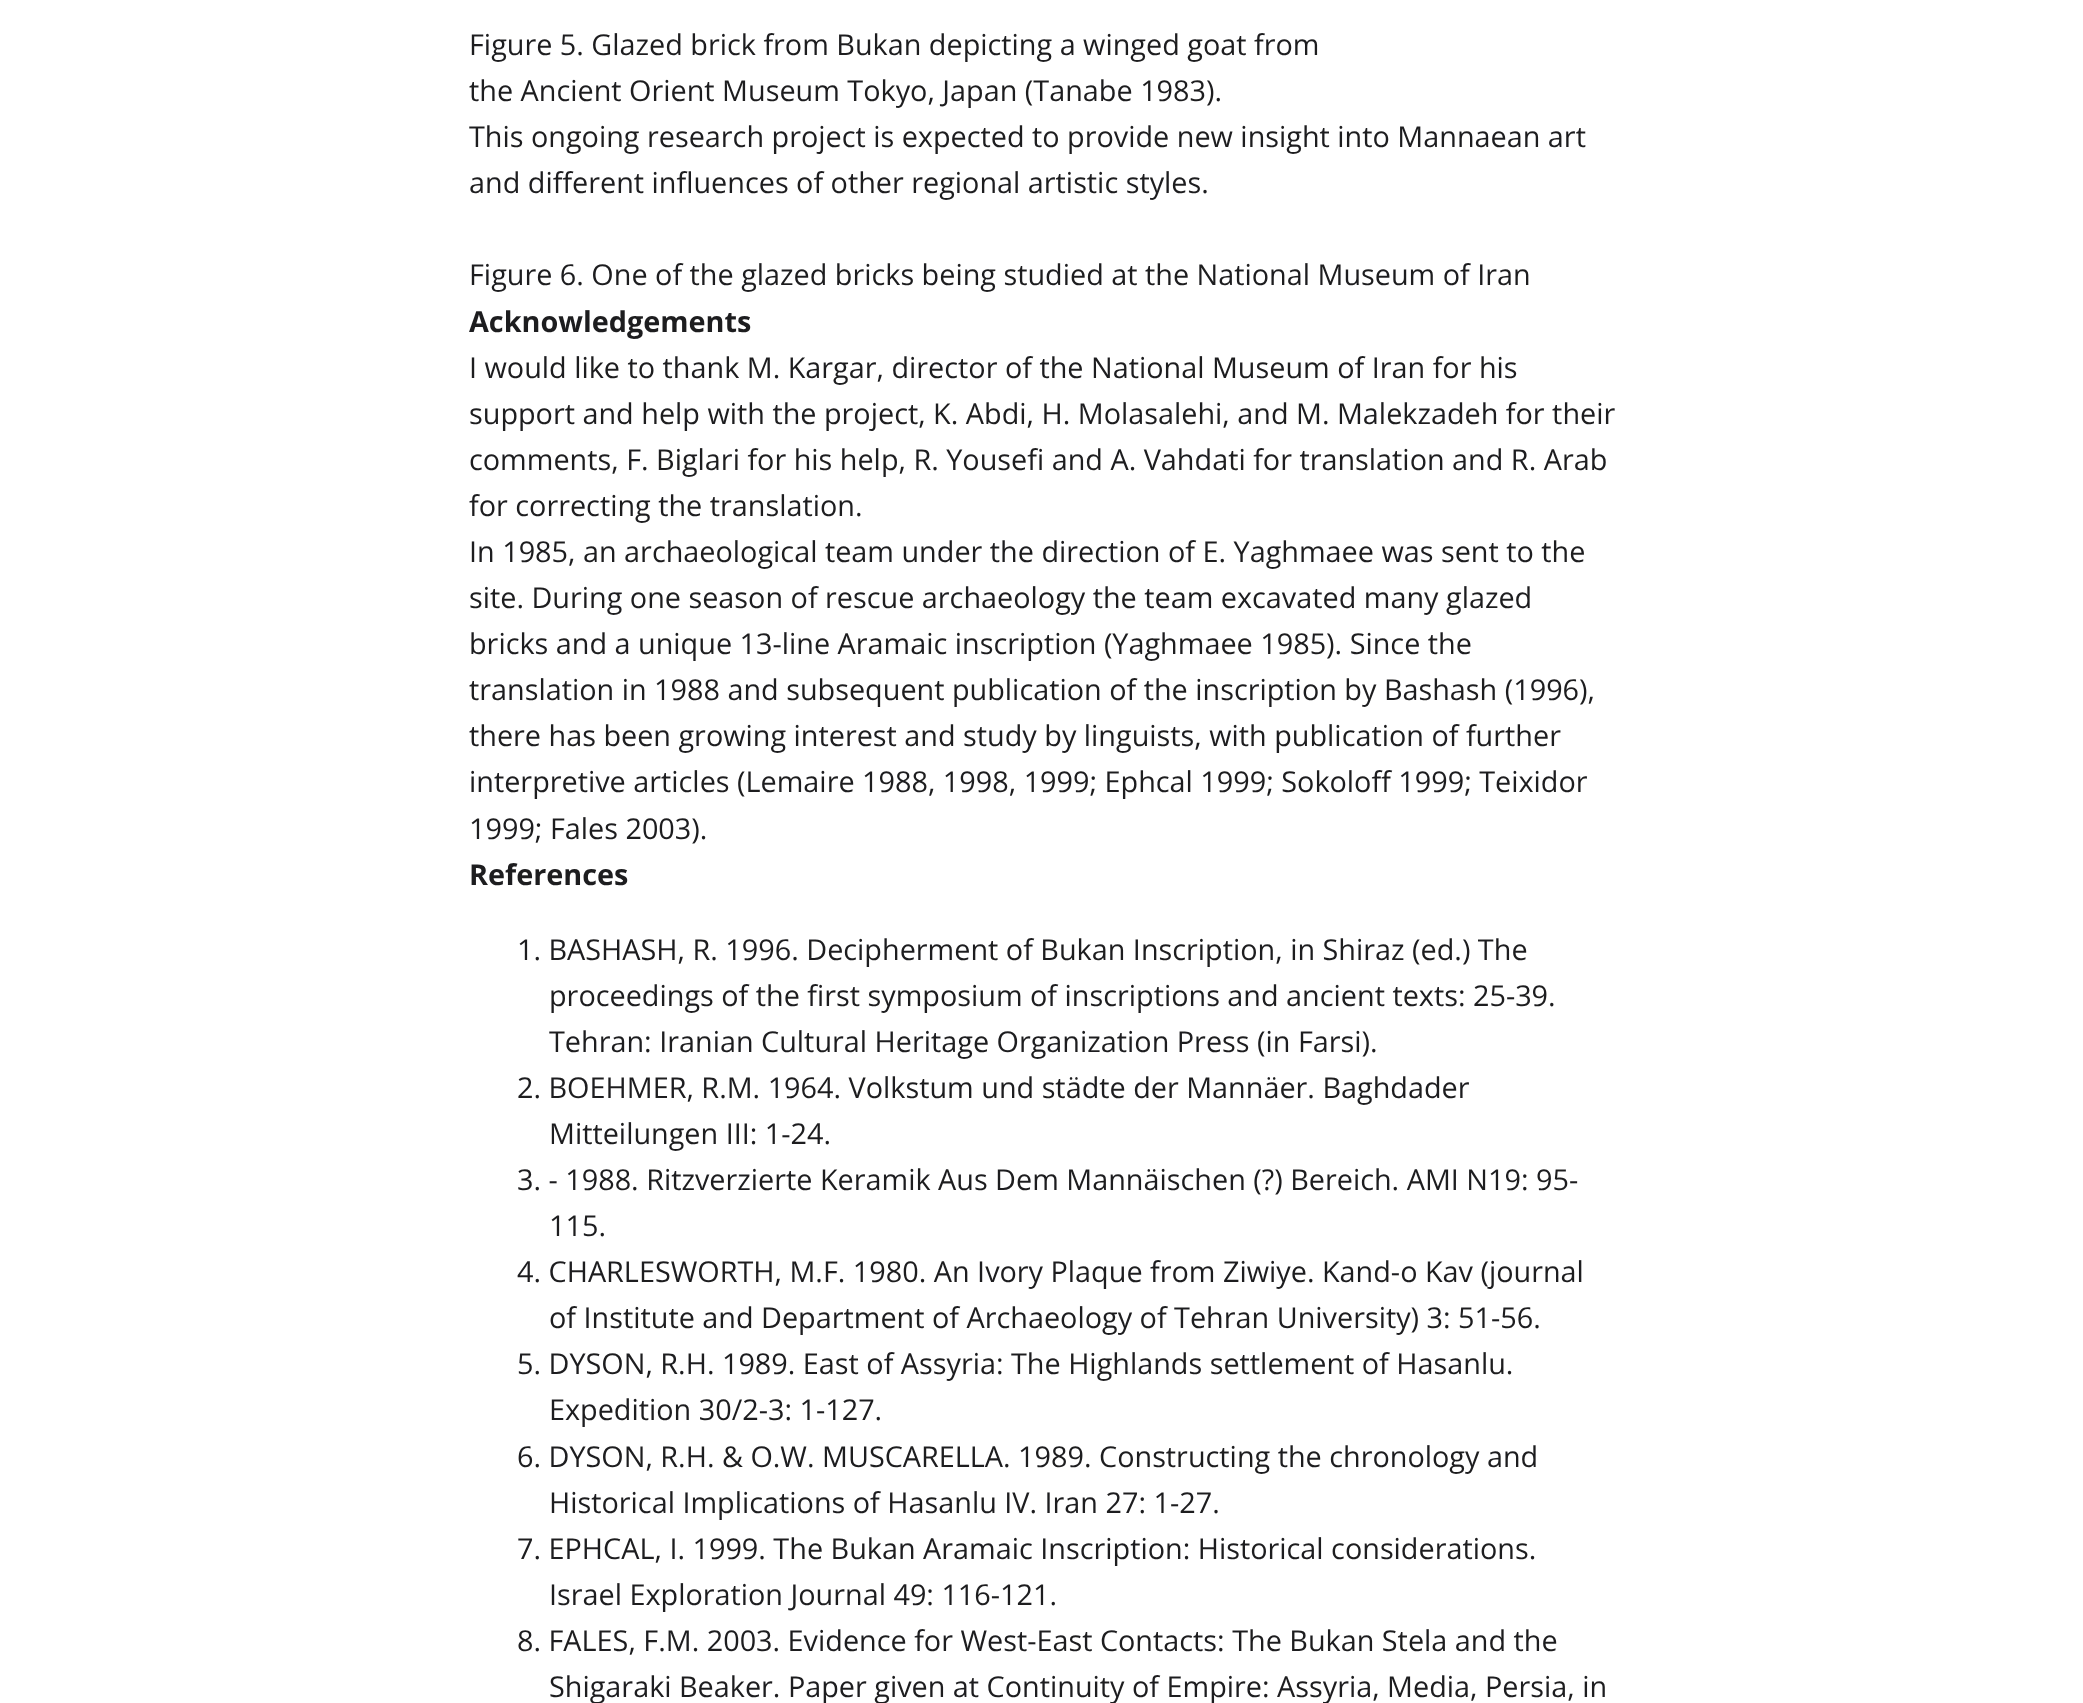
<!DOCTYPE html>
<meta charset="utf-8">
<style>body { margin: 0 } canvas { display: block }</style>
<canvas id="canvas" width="2083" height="1703"></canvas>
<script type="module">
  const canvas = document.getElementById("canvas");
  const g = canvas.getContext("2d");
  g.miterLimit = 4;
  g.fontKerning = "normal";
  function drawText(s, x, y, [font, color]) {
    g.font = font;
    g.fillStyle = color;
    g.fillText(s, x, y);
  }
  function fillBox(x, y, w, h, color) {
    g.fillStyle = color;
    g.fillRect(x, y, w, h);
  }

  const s1 = ["28.8px Open Sans", "#1D1D1F"];
  const s2 = ["bold 28.8px Open Sans", "#1D1D1F"];

  fillBox(0, 0, 2083, 1703, "#FFFFFF");
  drawText("Figure 5. Glazed brick from Bukan depicting a winged goat from", 469, 55, s1);
  drawText("the Ancient Orient Museum Tokyo, Japan (Tanabe 1983).", 469, 101, s1);
  drawText("This ongoing research project is expected to provide new insight into Mannaean art", 469, 147, s1);
  drawText("and different influences of other regional artistic styles.", 469, 193, s1);
  drawText("Figure 6. One of the glazed bricks being studied at the National Museum of Iran", 469, 285, s1);
  drawText("Acknowledgements", 469, 332, s2);
  drawText("I would like to thank M. Kargar, director of the National Museum of Iran for his", 469, 378, s1);
  drawText("support and help with the project, K. Abdi, H. Molasalehi, and M. Malekzadeh for their", 469, 424, s1);
  drawText("comments, F. Biglari for his help, R. Yousefi and A. Vahdati for translation and R. Arab", 469, 470, s1);
  drawText("for correcting the translation.", 469, 516, s1);
  drawText("In 1985, an archaeological team under the direction of E. Yaghmaee was sent to the", 469, 562, s1);
  drawText("site. During one season of rescue archaeology the team excavated many glazed", 469, 608, s1);
  drawText("bricks and a unique 13-line Aramaic inscription (Yaghmaee 1985). Since the", 469, 654, s1);
  drawText("translation in 1988 and subsequent publication of the inscription by Bashash (1996),", 469, 700, s1);
  drawText("there has been growing interest and study by linguists, with publication of further", 469, 746, s1);
  drawText("interpretive articles (Lemaire 1988, 1998, 1999; Ephcal 1999; Sokoloff 1999; Teixidor", 469, 792, s1);
  drawText("1999; Fales 2003).", 469, 839, s1);
  drawText("References", 469, 885, s2);
  drawText("1. BASHASH, R. 1996. Decipherment of Bukan Inscription, in Shiraz (ed.) The", 517, 960, s1);
  drawText("proceedings of the first symposium of inscriptions and ancient texts: 25-39.", 549, 1006, s1);
  drawText("Tehran: Iranian Cultural Heritage Organization Press (in Farsi).", 549, 1052, s1);
  drawText("2. BOEHMER, R.M. 1964. Volkstum und städte der Mannäer. Baghdader", 517, 1098, s1);
  drawText("Mitteilungen III: 1-24.", 549, 1144, s1);
  drawText("3. - 1988. Ritzverzierte Keramik Aus Dem Mannäischen (?) Bereich. AMI N19: 95-", 517, 1190, s1);
  drawText("115.", 549, 1236, s1);
  drawText("4. CHARLESWORTH, M.F. 1980. An Ivory Plaque from Ziwiye. Kand-o Kav (journal", 517, 1282, s1);
  drawText("of Institute and Department of Archaeology of Tehran University) 3: 51-56.", 549, 1328, s1);
  drawText("5. DYSON, R.H. 1989. East of Assyria: The Highlands settlement of Hasanlu.", 517, 1374, s1);
  drawText("Expedition 30/2-3: 1-127.", 549, 1420, s1);
  drawText("6. DYSON, R.H. & O.W. MUSCARELLA. 1989. Constructing the chronology and", 517, 1467, s1);
  drawText("Historical Implications of Hasanlu IV. Iran 27: 1-27.", 549, 1513, s1);
  drawText("7. EPHCAL, I. 1999. The Bukan Aramaic Inscription: Historical considerations.", 517, 1559, s1);
  drawText("Israel Exploration Journal 49: 116-121.", 549, 1605, s1);
  drawText("8. FALES, F.M. 2003. Evidence for West-East Contacts: The Bukan Stela and the", 517, 1651, s1);
  drawText("Shigaraki Beaker. Paper given at Continuity of Empire: Assyria, Media, Persia, in", 549, 1697, s1);
</script>
